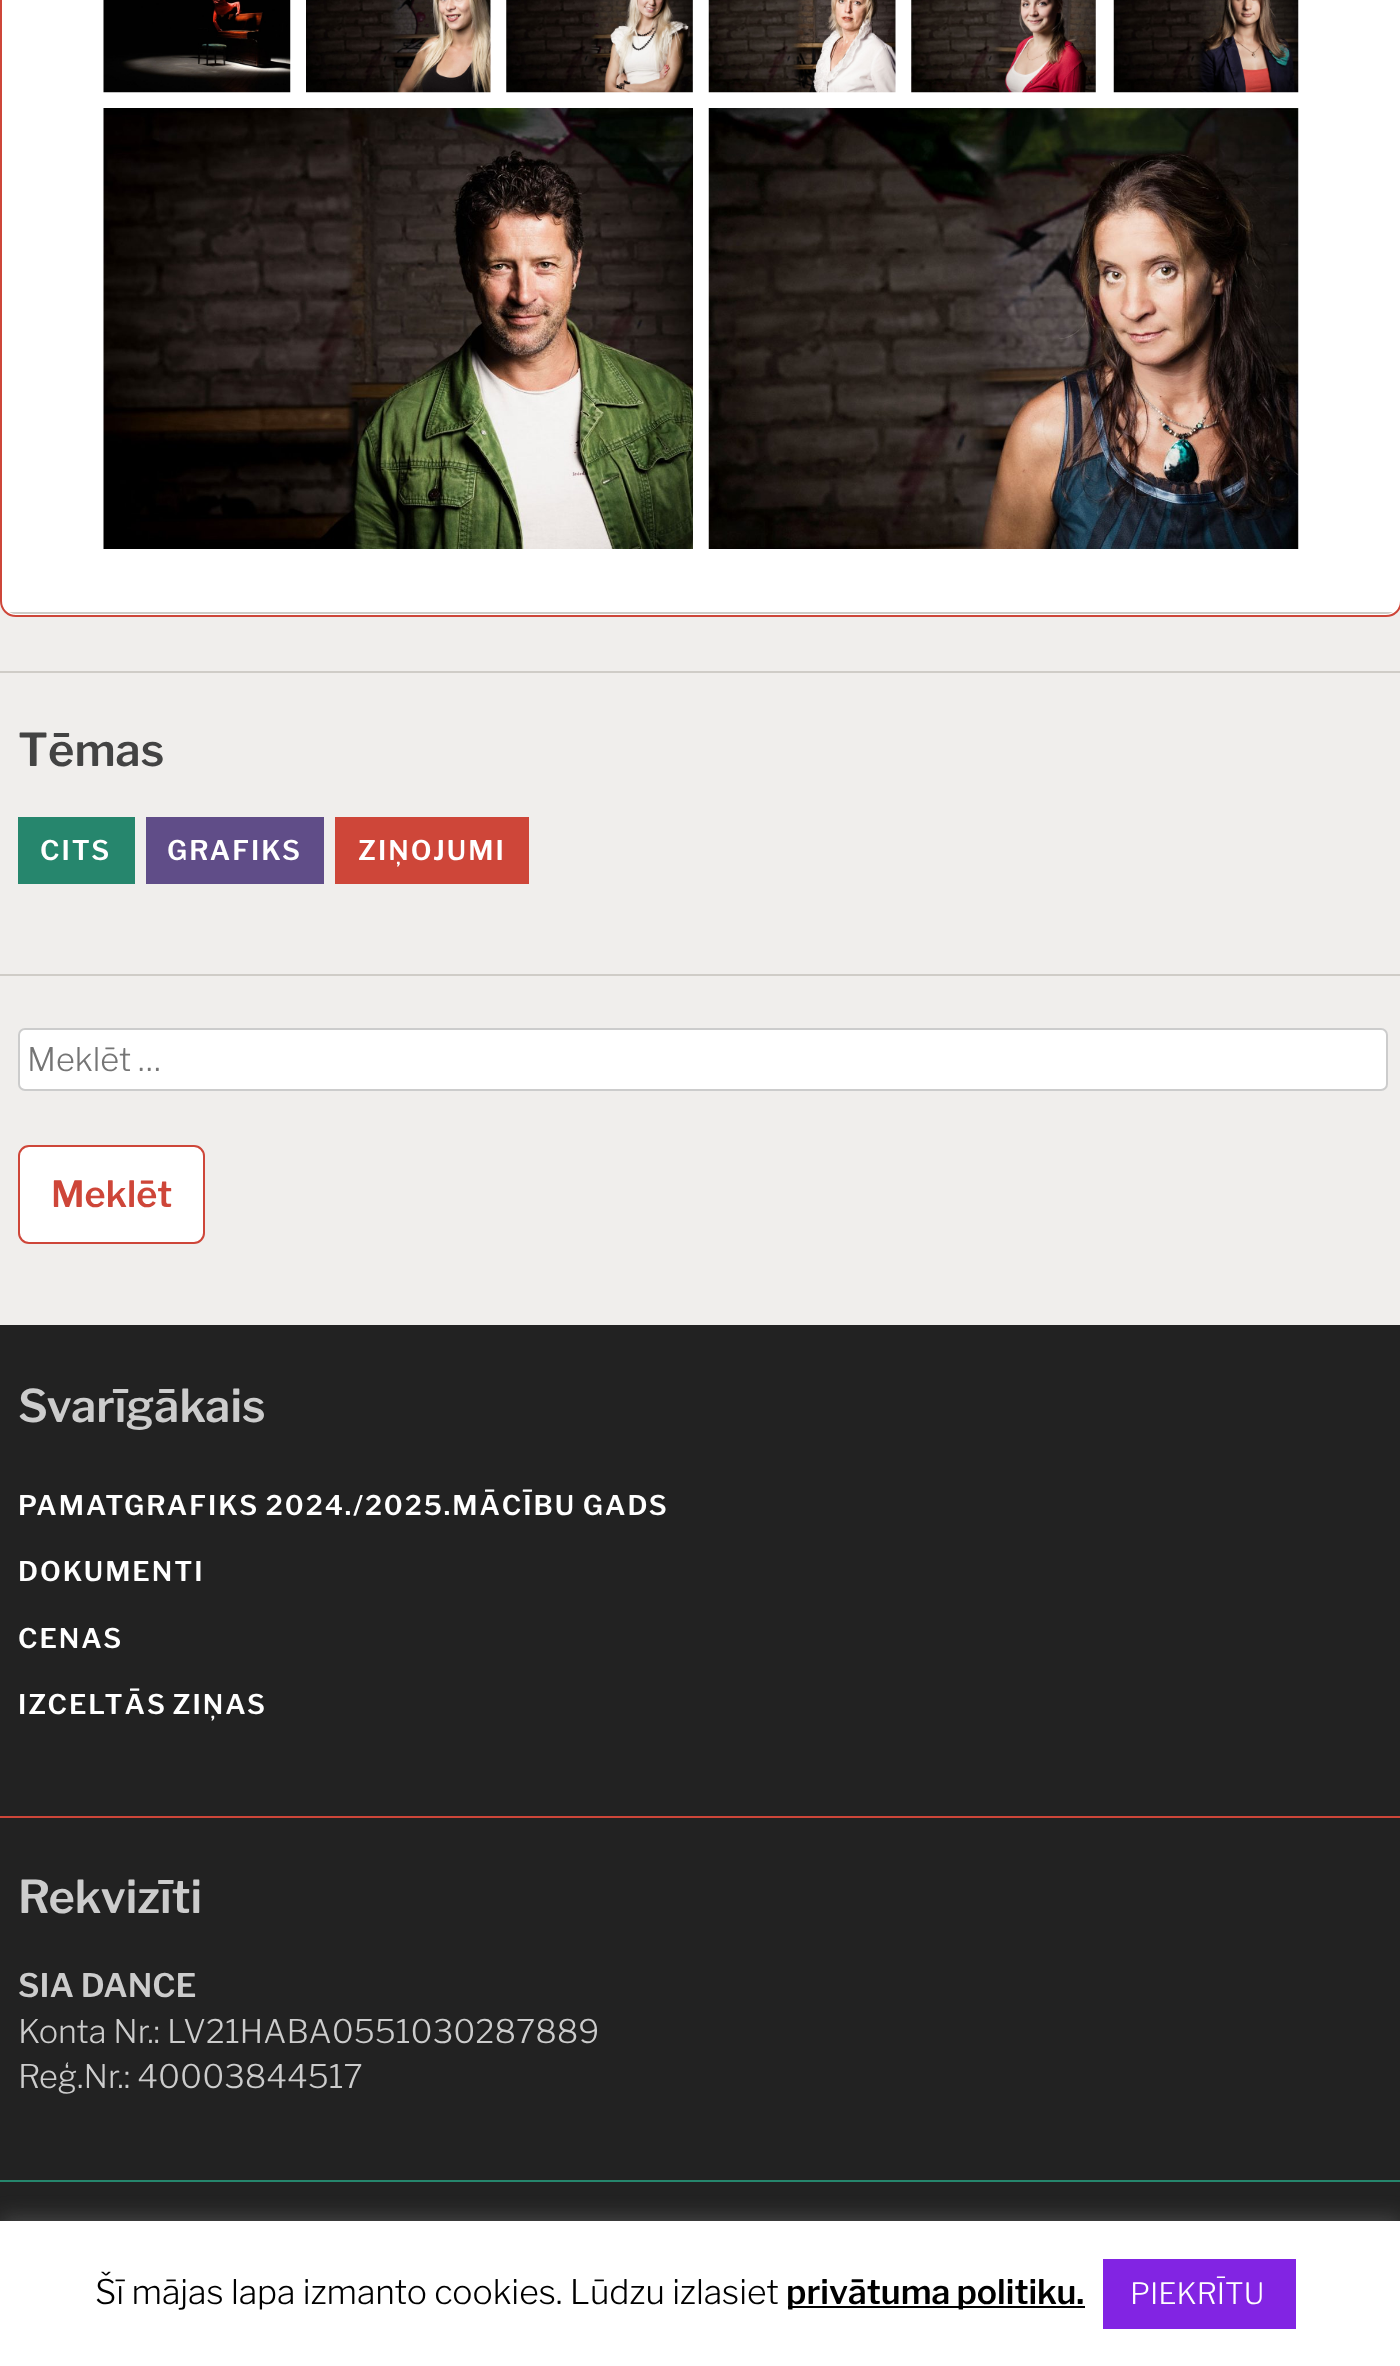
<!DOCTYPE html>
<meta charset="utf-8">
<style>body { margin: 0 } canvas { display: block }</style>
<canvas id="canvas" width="1400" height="2366"></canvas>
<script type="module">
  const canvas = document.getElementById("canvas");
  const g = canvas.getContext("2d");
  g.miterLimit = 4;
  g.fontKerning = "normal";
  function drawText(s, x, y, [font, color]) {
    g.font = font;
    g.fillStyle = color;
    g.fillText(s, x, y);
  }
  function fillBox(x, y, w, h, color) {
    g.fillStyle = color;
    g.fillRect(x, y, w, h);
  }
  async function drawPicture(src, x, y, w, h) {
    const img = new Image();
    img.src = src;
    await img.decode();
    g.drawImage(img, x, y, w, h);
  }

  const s1 = ["600 45px Libre Franklin", "#434343"];
  const s2 = ["600 27px Libre Franklin", "#FFFFFF"];
  const s3 = ["300 32.4px Libre Franklin", "#757575"];
  const s4 = ["600 36px Libre Franklin", "#CE4639"];
  const s5 = ["600 45px Libre Franklin", "#CCCCCC"];
  const s6 = ["600 32.4px Libre Franklin", "#CCCCCC"];
  const s7 = ["300 32.4px Libre Franklin", "#CCCCCC"];
  const s8 = ["300 33.75px Libre Franklin", "#000000"];
  const s9 = ["600 33.75px Libre Franklin", "#000000"];
  const s10 = ["300 29.25px Libre Franklin", "#FFFFFF"];

  fillBox(0, 0, 1400, 2366, "#F0EEEC");
  g.fillStyle = "#FFFFFF";
  g.beginPath();
  g.moveTo(1, -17);
  g.lineTo(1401, -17);
  g.lineTo(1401, 601);
  g.bezierCurveTo(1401, 609.5, 1394.5, 616, 1386, 616);
  g.lineTo(16, 616);
  g.bezierCurveTo(7.5, 616, 1, 609.5, 1, 601);
  g.closePath();
  g.fill();
  g.strokeStyle = "#CE4639";
  g.lineWidth = 2;
  g.stroke();
  await drawPicture("pic1.png", 103, 0, 188, 93);
  await drawPicture("pic2.png", 306, 0, 185, 93);
  await drawPicture("pic3.png", 506, 0, 187, 93);
  await drawPicture("pic4.png", 708, 0, 188, 93);
  await drawPicture("pic5.png", 911, 0, 185, 93);
  await drawPicture("pic6.png", 1113, 0, 186, 93);
  await drawPicture("pic7.png", 103, 108, 590, 441);
  await drawPicture("pic8.png", 708, 108, 591, 441);
  g.save();
  g.beginPath();
  g.moveTo(2, -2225);
  g.lineTo(1400, -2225);
  g.lineTo(1400, 600);
  g.bezierCurveTo(1400, 607.5, 1393.5, 614, 1386, 614);
  g.lineTo(16, 614);
  g.bezierCurveTo(8.5, 614, 2, 607.5, 2, 600);
  g.closePath();
  g.clip();
  fillBox(2, 612, 1398, 2, "#CFCCC7");
  g.restore();
  fillBox(0, 671, 1400, 2, "#CFCCC7");
  drawText("Tēmas", 18, 766, s1);
  fillBox(18, 817, 117, 67, "#26866D");
  g.letterSpacing = "2px";
  drawText("CITS", 40, 860, s2);
  fillBox(146, 817, 178, 67, "#604D88");
  drawText("GRAFIKS", 167, 860, s2);
  fillBox(335, 817, 194, 67, "#CE4639");
  drawText("ZIŅOJUMI", 358, 860, s2);
  fillBox(0, 974, 1400, 2, "#CFCCC7");
  g.fillStyle = "#FFFFFF";
  g.beginPath();
  g.roundRect(19, 1029, 1368, 61, 6);
  g.fill();
  g.strokeStyle = "#CCCCCC";
  g.stroke();
  g.letterSpacing = "0px";
  drawText("Meklēt …", 27, 1071, s3);
  g.fillStyle = "#FFFFFF";
  g.beginPath();
  g.roundRect(19, 1146, 185, 97, 10);
  g.fill();
  g.strokeStyle = "#CE4639";
  g.stroke();
  drawText("Meklēt", 51, 1207, s4);
  fillBox(0, 1325, 1400, 896, "#222222");
  drawText("Svarīgākais", 18, 1422, s5);
  g.letterSpacing = "2px";
  g.wordSpacing = "-1px";
  drawText("PAMATGRAFIKS 2024./2025.MĀCĪBU GADS", 18, 1515, s2);
  g.wordSpacing = "0px";
  drawText("DOKUMENTI", 18, 1581, s2);
  drawText("CENAS", 18, 1648, s2);
  g.wordSpacing = "-2px";
  drawText("IZCELTĀS ZIŅAS", 18, 1714, s2);
  fillBox(0, 1816, 1400, 2, "#CE4639");
  g.letterSpacing = "0px";
  g.wordSpacing = "0px";
  drawText("Rekvizīti", 18, 1913, s5);
  drawText("SIA DANCE", 18, 1997, s6);
  drawText("Konta Nr.: LV21HABA0551030287889", 18, 2043, s7);
  drawText("Reģ.Nr.: 40003844517", 18, 2088, s7);
  fillBox(0, 2180, 1400, 2, "#26866D");
  g.fillStyle = "rgba(172, 171, 171, 0.3)";
  g.filter = "blur(11px)";
  g.beginPath();
  g.rect(0, 2219, 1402, 146);
  g.fill();
  g.filter = "none";
  fillBox(0, 2221, 1400, 145, "#FFFFFF");
  drawText("Šī mājas lapa izmanto cookies. Lūdzu izlasiet", 95, 2304, s8);
  fillBox(788, 2306, 297, 2, "#000000");
  g.wordSpacing = "-1px";
  drawText("privātuma politiku.", 786, 2304, s9);
  fillBox(1103, 2259, 193, 70, "#8224E3");
  g.wordSpacing = "0px";
  drawText("PIEKRĪTU", 1130, 2304, s10);
</script>
